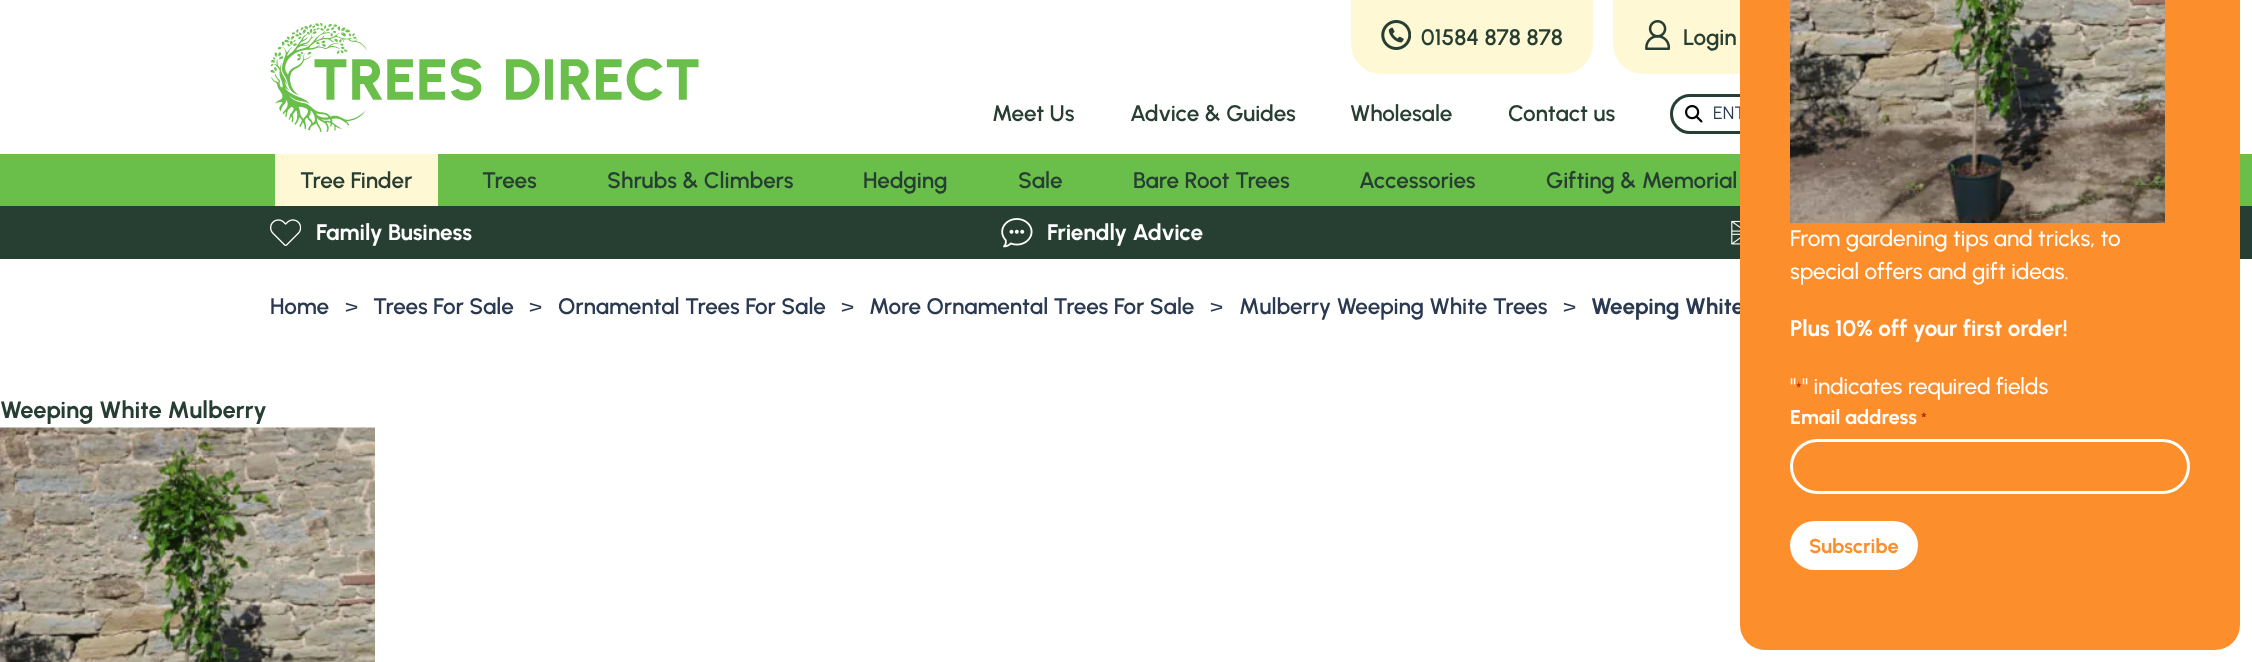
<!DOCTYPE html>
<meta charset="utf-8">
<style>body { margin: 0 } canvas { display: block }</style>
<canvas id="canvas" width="2252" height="662"></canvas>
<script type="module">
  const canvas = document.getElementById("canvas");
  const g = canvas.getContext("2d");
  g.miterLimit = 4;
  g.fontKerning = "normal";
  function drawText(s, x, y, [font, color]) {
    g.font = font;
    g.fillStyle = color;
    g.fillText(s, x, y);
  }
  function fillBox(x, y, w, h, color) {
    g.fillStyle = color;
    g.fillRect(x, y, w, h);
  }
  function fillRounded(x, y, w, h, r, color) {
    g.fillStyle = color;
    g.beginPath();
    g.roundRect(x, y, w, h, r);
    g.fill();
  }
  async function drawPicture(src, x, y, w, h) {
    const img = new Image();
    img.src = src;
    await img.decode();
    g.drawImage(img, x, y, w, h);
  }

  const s1 = ["600 22.5px Urbanist", "#273E32"];
  const s2 = ["18px Urbanist", "#2A3950"];
  const s3 = ["bold 22.5px Urbanist", "#FFFFFF"];
  const s4 = ["600 22.5px Urbanist", "#2A3950"];
  const s5 = ["22.5px Urbanist", "#2A3950"];
  const s6 = ["bold 22.5px Urbanist", "#2A3950"];
  const s7 = ["bold 23.75px Urbanist", "#273E32"];
  const s8 = ["500 22.5px Urbanist", "#FFFFFF"];
  const s9 = ["500 16px Urbanist", "#C02B0A"];
  const s10 = ["bold 20px Urbanist", "#FFFFFF"];
  const s11 = ["bold 16px Urbanist", "#C02B0A"];
  const s12 = ["bold 20px Urbanist", "#FD8E2C"];

  fillBox(0, 0, 2252, 662, "#FFFFFF");
  await drawPicture("pic1.png", 270, 23, 429, 109);
  g.fillStyle = "#FFF8D4";
  g.beginPath();
  g.roundRect(1351, 0, 242, 74, [0, 0, 30, 30]);
  g.fill();
  await drawPicture("pic2.png", 1381, 20, 30, 30);
  drawText("01584 878 878", 1421, 45, s1);
  g.fillStyle = "#FFF8D4";
  g.beginPath();
  g.roundRect(1613, 0, 153, 74, [0, 0, 30, 30]);
  g.fill();
  await drawPicture("pic3.png", 1645, 20, 25, 30);
  drawText("Login", 1683, 45, s1);
  drawText("Meet Us", 992, 121, s1);
  drawText("Advice & Guides", 1130, 121, s1);
  drawText("Wholesale", 1350, 121, s1);
  drawText("Contact us", 1508, 121, s1);
  g.beginPath();
  g.roundRect(1671.5, 95.5, 310, 37, 18.5);
  g.strokeStyle = "#273E32";
  g.lineWidth = 3;
  g.stroke();
  await drawPicture("pic4.png", 1685, 105, 18, 18);
  drawText("ENT", 1713, 119, s2);
  fillBox(0, 154, 2252, 52, "#69BF4A");
  fillBox(275, 154, 163, 52, "#FFF8D4");
  drawText("Tree Finder", 300, 188, s1);
  drawText("Trees", 482, 188, s1);
  drawText("Shrubs & Climbers", 607, 188, s1);
  drawText("Hedging", 863, 188, s1);
  drawText("Sale", 1018, 188, s1);
  drawText("Bare Root Trees", 1133, 188, s1);
  drawText("Accessories", 1359, 188, s1);
  drawText("Gifting & Memorial", 1546, 188, s1);
  fillBox(0, 206, 2252, 53, "#273E32");
  await drawPicture("pic5.png", 270, 219, 31, 27);
  drawText("Family Business", 316, 240, s3);
  await drawPicture("pic6.png", 1001, 218, 32, 30);
  drawText("Friendly Advice", 1047, 240, s3);
  await drawPicture("pic7.png", 1731, 220, 9, 25);
  drawText("Home", 270, 314, s4);
  drawText(">", 345, 314, s5);
  drawText("Trees For Sale", 373, 314, s4);
  drawText(">", 529, 314, s5);
  drawText("Ornamental Trees For Sale", 558, 314, s4);
  drawText(">", 841, 314, s5);
  drawText("More Ornamental Trees For Sale", 869, 314, s4);
  drawText(">", 1210, 314, s5);
  drawText("Mulberry Weeping White Trees", 1239, 314, s4);
  drawText(">", 1563, 314, s5);
  drawText("Weeping White", 1591, 314, s6);
  drawText("Weeping White Mulberry", 0, 418, s7);
  await drawPicture("pic8.png", 0, 427, 375, 235);
  fillRounded(1740, -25, 500, 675, 25, "#FD8E2C");
  await drawPicture("pic9.png", 1790, 0, 375, 223);
  drawText("From gardening tips and tricks, to", 1790, 246, s8);
  drawText("special offers and gift ideas.", 1790, 279, s8);
  drawText("Plus 10% off your first order!", 1790, 336, s3);
  drawText("\"", 1790, 394, s8);
  drawText("*", 1796, 394, s9);
  drawText("\" indicates required fields", 1802, 394, s8);
  drawText("Email address", 1790, 424, s10);
  drawText("*", 1921, 424, s11);
  g.beginPath();
  g.roundRect(1791.5, 440.5, 397, 52, 26);
  g.strokeStyle = "#FFFFFF";
  g.stroke();
  fillRounded(1790, 521, 128, 49, 24.5, "#FFFFFF");
  drawText("Subscribe", 1809, 553, s12);
</script>
